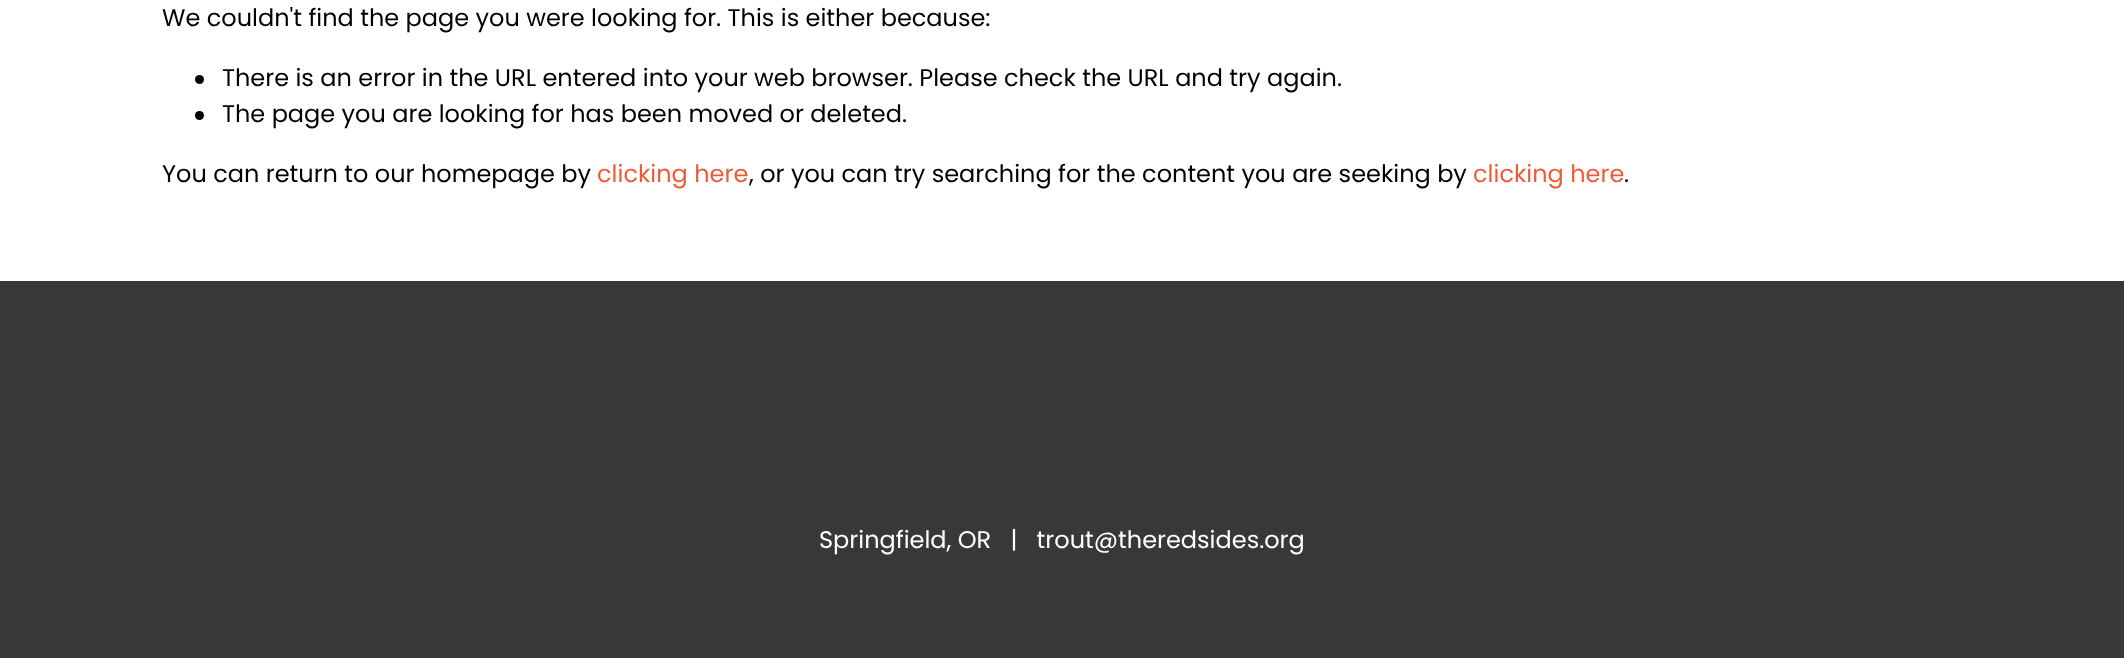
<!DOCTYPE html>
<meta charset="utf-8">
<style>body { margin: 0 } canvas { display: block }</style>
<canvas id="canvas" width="2124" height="658"></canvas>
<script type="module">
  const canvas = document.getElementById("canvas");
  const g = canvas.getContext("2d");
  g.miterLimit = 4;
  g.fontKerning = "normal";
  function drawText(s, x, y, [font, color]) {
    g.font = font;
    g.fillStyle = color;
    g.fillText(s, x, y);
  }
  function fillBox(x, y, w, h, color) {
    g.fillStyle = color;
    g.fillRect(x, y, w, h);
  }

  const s1 = ["24px Poppins", "#000000"];
  const s2 = ["24px Poppins", "#EC5C39"];
  const s3 = ["24px Poppins", "#FFFFFF"];

  fillBox(0, 0, 2124, 658, "#FFFFFF");
  drawText("We couldn't find the page you were looking for. This is either because:", 162, 26, s1);
  g.beginPath();
  g.arc(199.5, 79.5, 4.5, 0, Math.PI * 2);
  g.fill();
  drawText("There is an error in the URL entered into your web browser. Please check the URL and try again.", 222, 86, s1);
  g.beginPath();
  g.arc(199.5, 115.5, 4.5, 0, Math.PI * 2);
  g.fill();
  drawText("The page you are looking for has been moved or deleted.", 222, 122, s1);
  drawText("You can return to our homepage by", 162, 182, s1);
  drawText("clicking here", 597, 182, s2);
  drawText(", or you can try searching for the content you are seeking by", 749, 182, s1);
  drawText("clicking here", 1473, 182, s2);
  drawText(".", 1624, 182, s1);
  fillBox(0, 281, 2124, 377, "#383838");
  drawText("Springfield, OR   |   trout@theredsides.org", 819, 548, s3);
</script>
